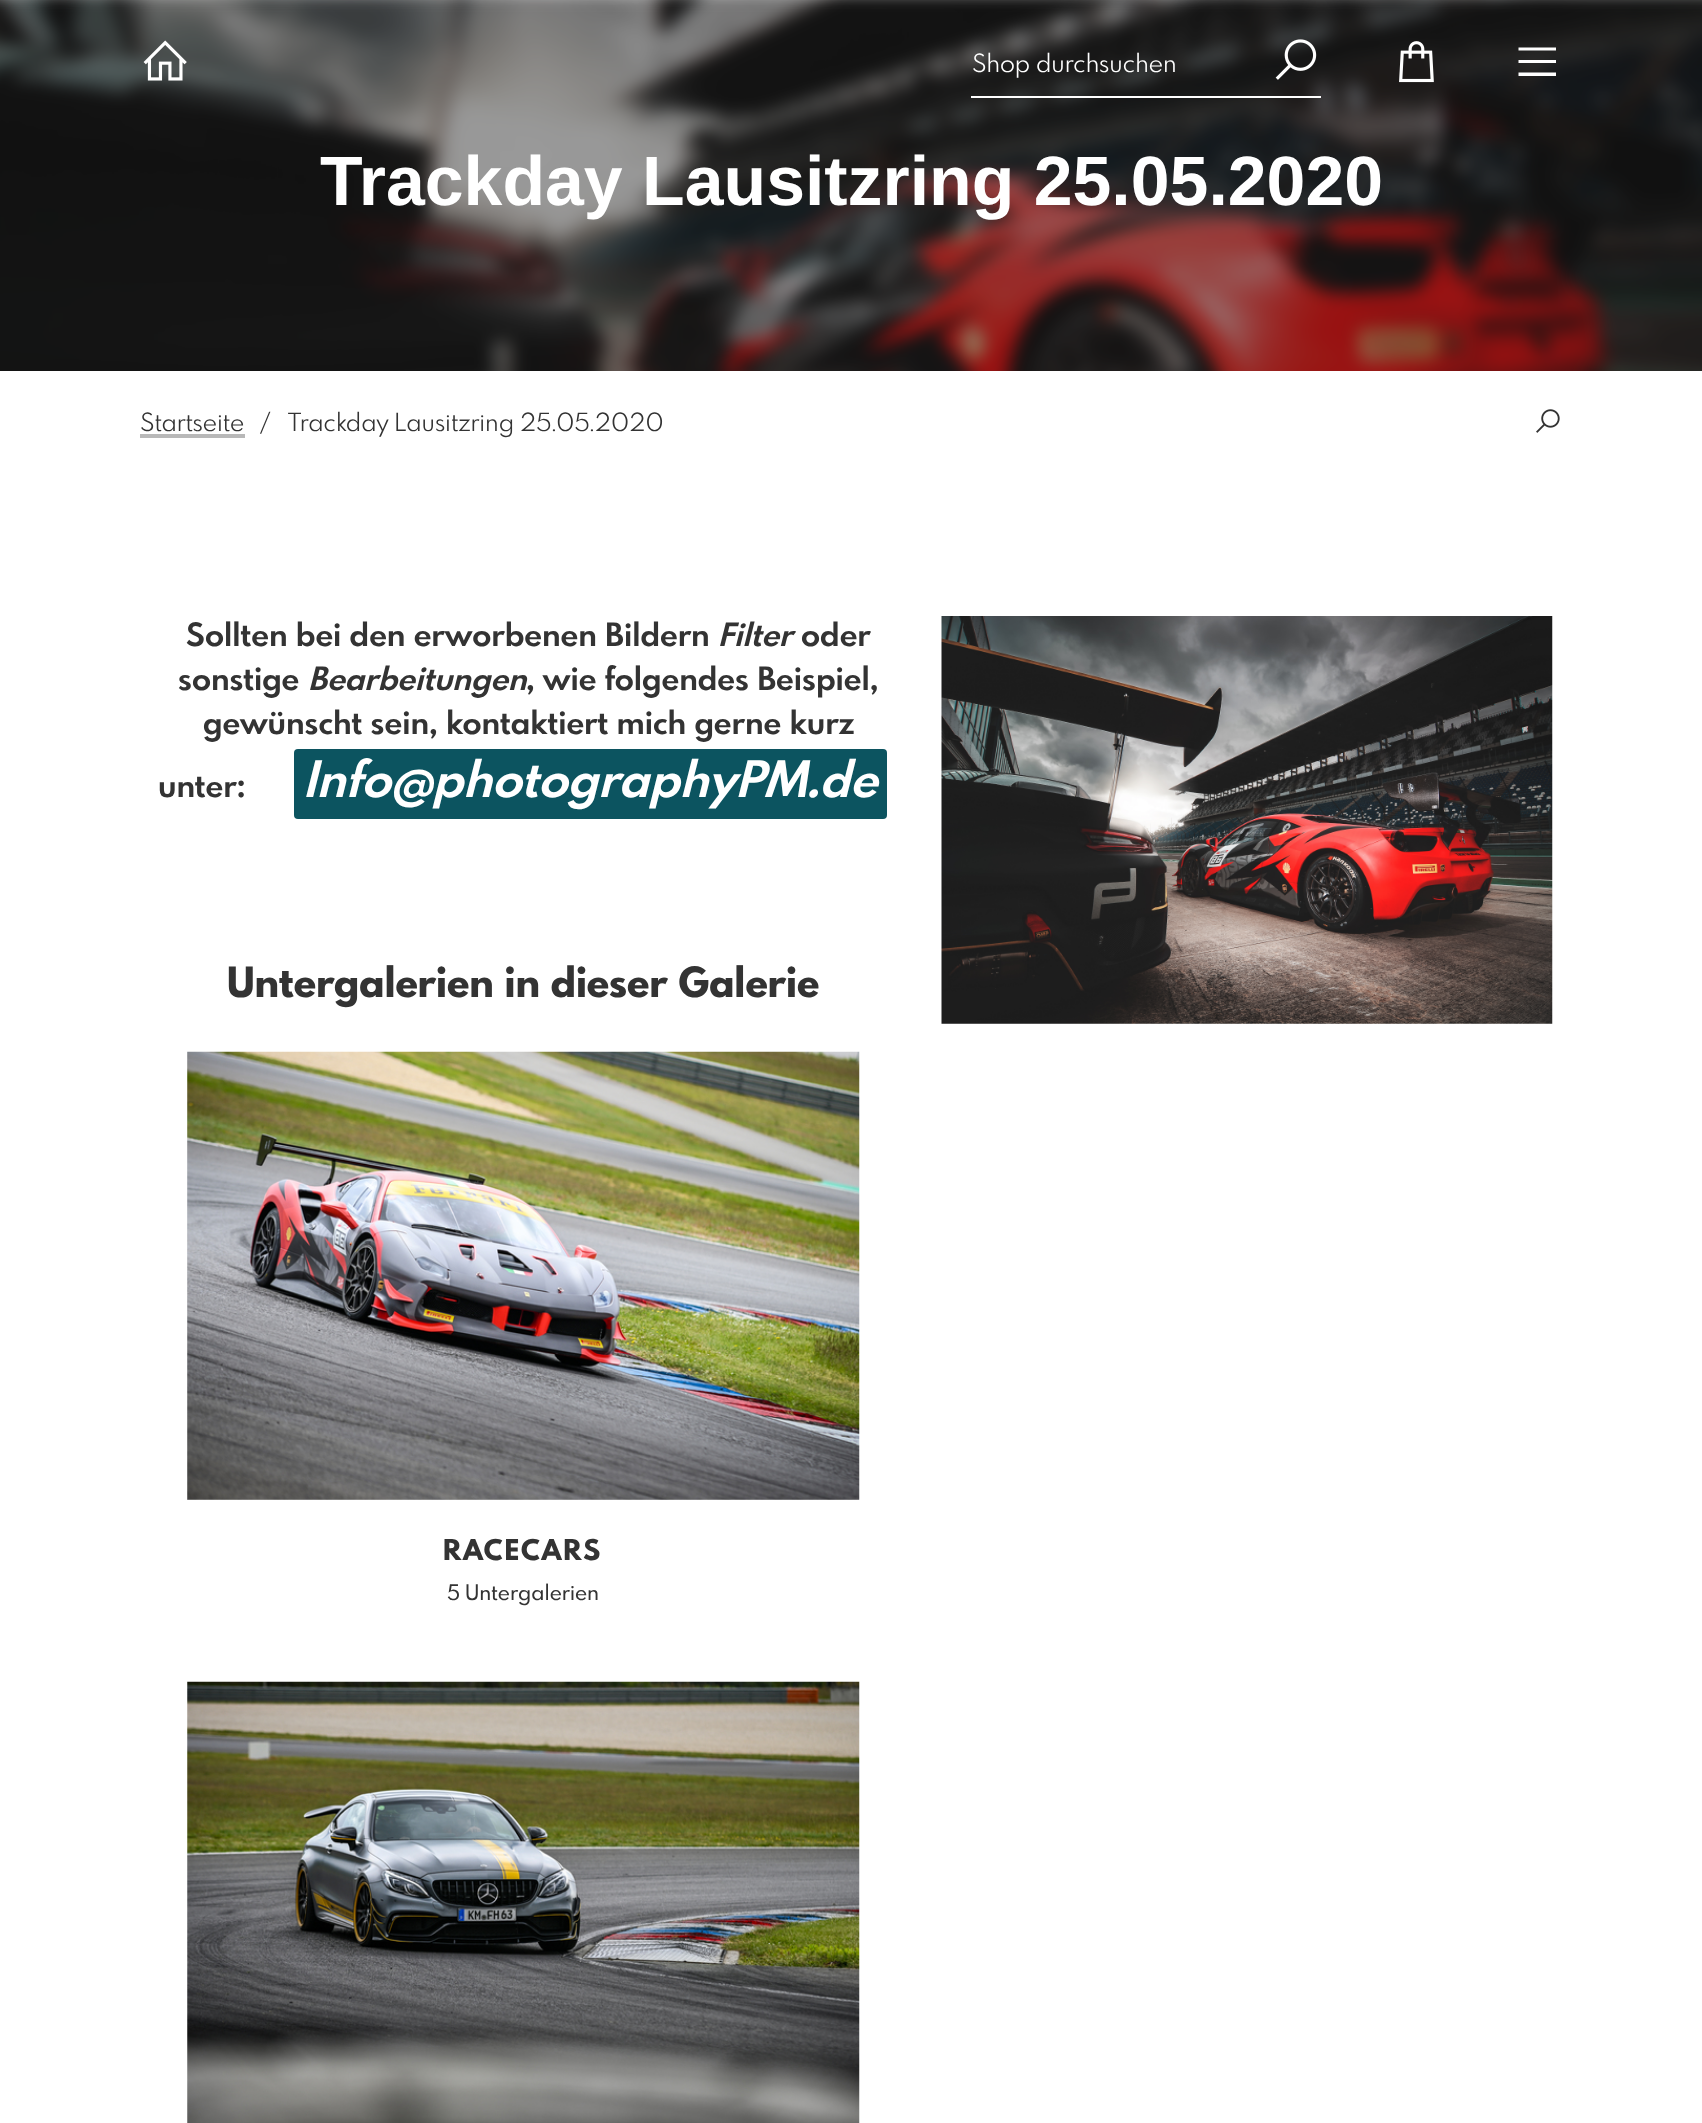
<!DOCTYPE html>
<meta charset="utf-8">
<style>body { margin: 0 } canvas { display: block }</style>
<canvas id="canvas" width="1702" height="2123"></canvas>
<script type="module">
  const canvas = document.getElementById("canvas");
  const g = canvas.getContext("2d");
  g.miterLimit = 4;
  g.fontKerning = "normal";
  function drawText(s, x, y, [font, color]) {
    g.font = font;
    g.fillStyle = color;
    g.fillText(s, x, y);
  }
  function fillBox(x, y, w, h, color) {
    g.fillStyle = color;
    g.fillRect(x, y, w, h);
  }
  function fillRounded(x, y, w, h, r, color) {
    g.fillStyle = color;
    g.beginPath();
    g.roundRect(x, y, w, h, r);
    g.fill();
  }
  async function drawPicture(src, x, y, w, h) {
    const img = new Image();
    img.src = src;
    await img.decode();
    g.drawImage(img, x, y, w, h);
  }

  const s1 = ["24.5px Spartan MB", "#FFFFFF"];
  const s2 = ["bold 69.8px Liberation Sans", "#FFFFFF"];
  const s3 = ["24.5px Spartan MB", "#333333"];
  const s4 = ["bold 31.5px Spartan MB", "#333333"];
  const s5 = ["italic bold 31.5px Spartan MB", "#333333"];
  const s6 = ["italic bold 49px Spartan MB", "#FFFFFF"];
  const s7 = ["800 40.75px Spartan MB", "#333333"];
  const s8 = ["800 28px Spartan MB", "#333333"];
  const s9 = ["500 21px Spartan MB", "#333333"];

  fillBox(0, 0, 1702, 2123, "#FFFFFF");
  await drawPicture("pic1.png", 0, 0, 1702, 371);
  await drawPicture("pic2.png", 143, 40, 44, 41);
  fillBox(971, 96, 350, 2, "#FFFFFF");
  drawText("Shop durchsuchen", 972, 72, s1);
  await drawPicture("pic3.png", 1275, 39, 42, 41);
  await drawPicture("pic4.png", 1399, 41, 35, 42);
  g.beginPath();
  g.moveTo(1518.5, 47.5);
  g.lineTo(1518.5, 50.5);
  g.lineTo(1556, 50.5);
  g.lineTo(1556, 47.5);
  g.closePath();
  g.moveTo(1518.5, 60);
  g.lineTo(1518.5, 63);
  g.lineTo(1556, 63);
  g.lineTo(1556, 60);
  g.closePath();
  g.moveTo(1518.5, 72.5);
  g.lineTo(1518.5, 76);
  g.lineTo(1556, 76);
  g.lineTo(1556, 72.5);
  g.closePath();
  g.fill();
  drawText("Trackday Lausitzring 25.05.2020", 320, 205, s2);
  drawText("Startseite", 140, 431, s3);
  fillBox(140, 434, 105, 4, "#B8B8B8");
  drawText("/", 260, 431, s3);
  drawText("Trackday Lausitzring 25.05.2020", 288, 431, s3);
  await drawPicture("pic5.png", 1536, 409, 24, 24);
  drawText("Sollten bei den erworbenen Bildern", 186, 646, s4);
  drawText("Filter", 718, 646, s5);
  drawText("oder", 801, 646, s4);
  drawText("sonstige", 178, 690, s4);
  drawText("Bearbeitungen", 308, 690, s5);
  drawText(", wie folgendes Beispiel,", 526, 690, s4);
  drawText("gewünscht sein, kontaktiert mich gerne kurz", 203, 734, s4);
  drawText("unter:", 158, 797, s4);
  fillRounded(294, 749, 593, 70, 4, "#0C5460");
  drawText("Info@photographyPM.de", 303, 797, s6);
  await drawPicture("pic6.png", 941, 616, 612, 408);
  drawText("Untergalerien in dieser Galerie", 227, 997, s7);
  fillBox(187, 1052, 672, 448, "#EDEDED");
  await drawPicture("pic7.png", 187, 1051, 673, 449);
  g.letterSpacing = "1.75px";
  drawText("RACECARS", 443, 1560, s8);
  g.letterSpacing = "0px";
  drawText("5 Untergalerien", 447, 1600, s9);
  await drawPicture("pic8.png", 187, 1681, 673, 442);
</script>
